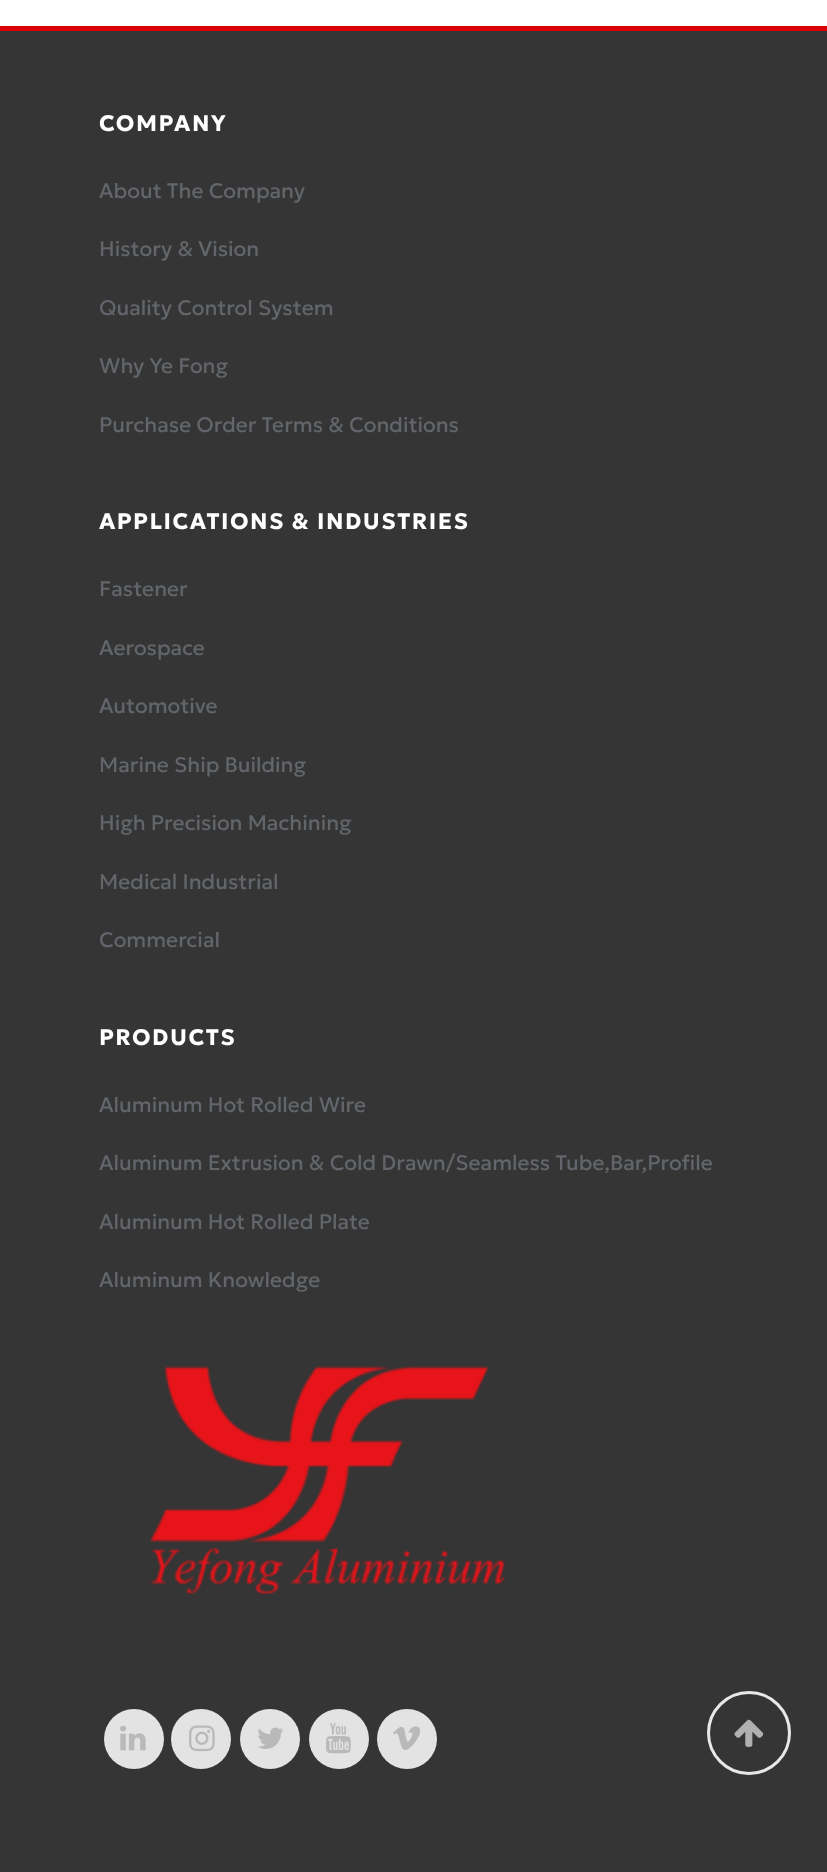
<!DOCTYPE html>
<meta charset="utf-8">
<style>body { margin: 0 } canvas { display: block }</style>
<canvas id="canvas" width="827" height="1872"></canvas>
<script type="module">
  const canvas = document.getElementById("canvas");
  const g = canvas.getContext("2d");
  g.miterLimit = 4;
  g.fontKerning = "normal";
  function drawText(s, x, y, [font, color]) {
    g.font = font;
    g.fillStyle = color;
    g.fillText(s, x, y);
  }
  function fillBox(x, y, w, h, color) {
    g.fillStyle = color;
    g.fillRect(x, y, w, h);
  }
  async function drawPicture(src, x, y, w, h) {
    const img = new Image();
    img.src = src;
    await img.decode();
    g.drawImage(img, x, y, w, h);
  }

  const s1 = ["bold 22.5px Geologica", "#FFFFFF"];
  const s2 = ["21px Geologica", "#62666A"];

  fillBox(0, 0, 827, 1872, "#FFFFFF");
  fillBox(0, 31, 827, 1841, "#353535");
  fillBox(0, 26, 827, 5, "#DD0000");
  g.letterSpacing = "1.5px";
  drawText("COMPANY", 99, 131, s1);
  g.letterSpacing = "0px";
  drawText("About The Company", 99, 198, s2);
  drawText("History & Vision", 99, 256, s2);
  drawText("Quality Control System", 99, 315, s2);
  drawText("Why Ye Fong", 99, 373, s2);
  drawText("Purchase Order Terms & Conditions", 99, 432, s2);
  g.letterSpacing = "1.5px";
  drawText("APPLICATIONS & INDUSTRIES", 99, 529, s1);
  g.letterSpacing = "0px";
  drawText("Fastener", 99, 596, s2);
  drawText("Aerospace", 99, 655, s2);
  drawText("Automotive", 99, 713, s2);
  drawText("Marine Ship Building", 99, 772, s2);
  drawText("High Precision Machining", 99, 830, s2);
  drawText("Medical Industrial", 99, 889, s2);
  drawText("Commercial", 99, 947, s2);
  g.letterSpacing = "1.5px";
  drawText("PRODUCTS", 99, 1045, s1);
  g.letterSpacing = "0px";
  drawText("Aluminum Hot Rolled Wire", 99, 1112, s2);
  drawText("Aluminum Extrusion & Cold Drawn/Seamless Tube,Bar,Profile", 99, 1170, s2);
  drawText("Aluminum Hot Rolled Plate", 99, 1229, s2);
  drawText("Aluminum Knowledge", 99, 1287, s2);
  await drawPicture("pic1.png", 150, 1366, 356, 229);
  g.fillStyle = "#E3E3E3";
  g.beginPath();
  g.arc(134, 1739, 30, 0, Math.PI * 2);
  g.fill();
  await drawPicture("pic2.png", 120, 1725, 26, 26);
  g.beginPath();
  g.arc(201, 1739, 30, 0, Math.PI * 2);
  g.fill();
  await drawPicture("pic3.png", 189, 1725, 26, 27);
  g.beginPath();
  g.arc(270, 1739, 30, 0, Math.PI * 2);
  g.fill();
  await drawPicture("pic4.png", 257, 1727, 27, 22);
  g.beginPath();
  g.arc(339, 1739, 30, 0, Math.PI * 2);
  g.fill();
  await drawPicture("pic5.png", 326, 1723, 25, 31);
  g.beginPath();
  g.arc(407, 1739, 30, 0, Math.PI * 2);
  g.fill();
  await drawPicture("pic6.png", 393, 1726, 27, 24);
  g.beginPath();
  g.arc(749, 1733, 40.5, 0, Math.PI * 2);
  g.strokeStyle = "#E8E8E8";
  g.lineWidth = 3;
  g.stroke();
  await drawPicture("pic7.png", 734, 1719, 30, 28);
</script>
